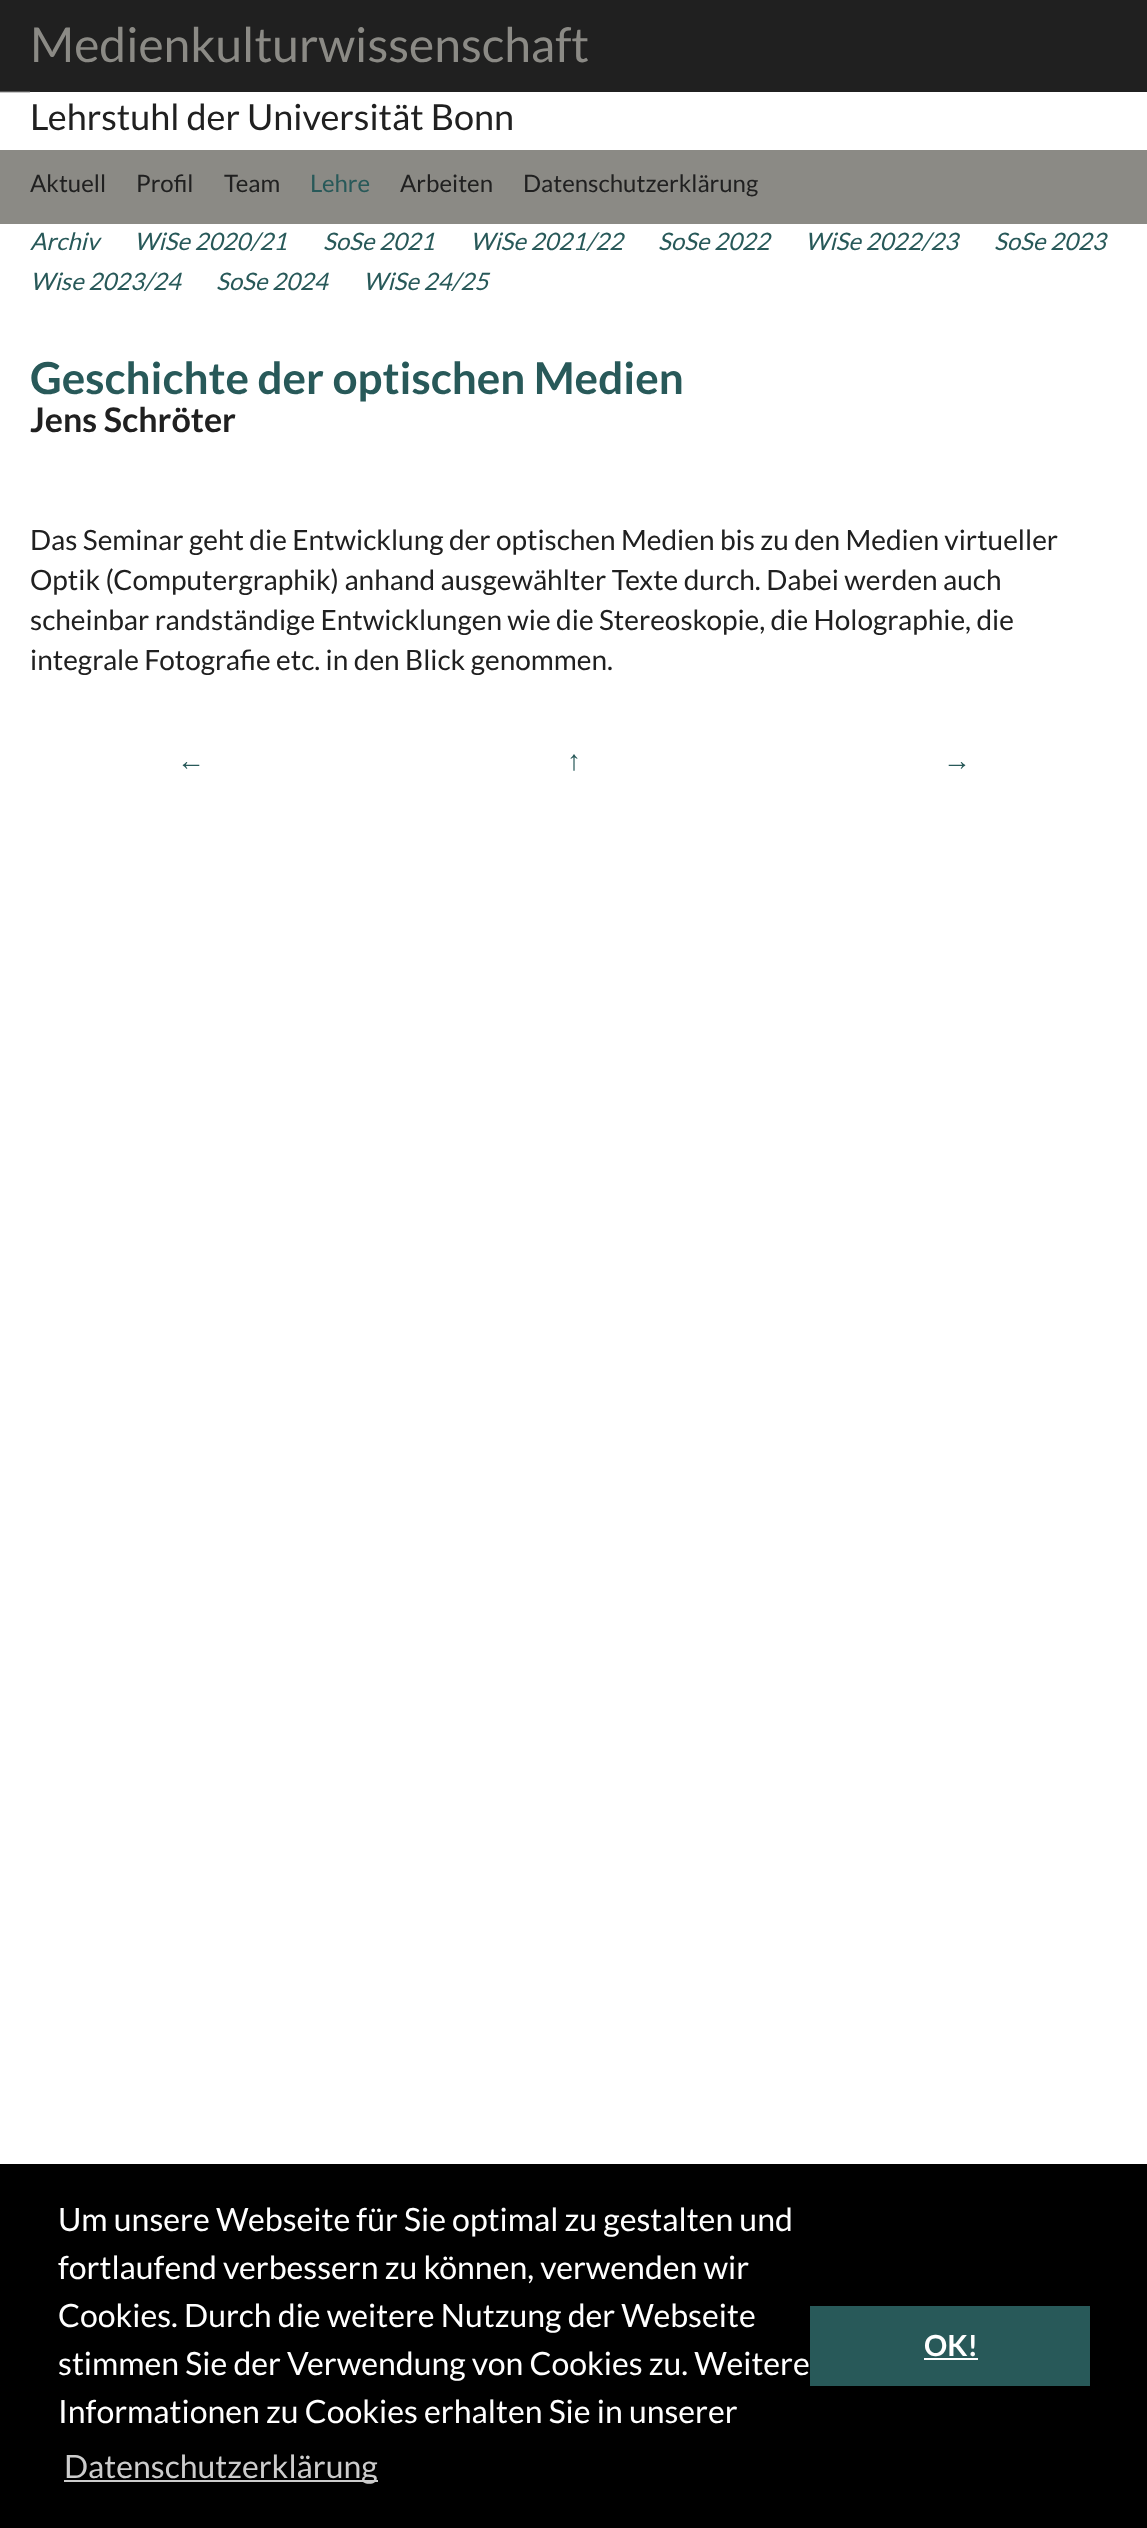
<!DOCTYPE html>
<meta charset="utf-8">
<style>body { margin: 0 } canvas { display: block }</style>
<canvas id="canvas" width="1147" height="2528"></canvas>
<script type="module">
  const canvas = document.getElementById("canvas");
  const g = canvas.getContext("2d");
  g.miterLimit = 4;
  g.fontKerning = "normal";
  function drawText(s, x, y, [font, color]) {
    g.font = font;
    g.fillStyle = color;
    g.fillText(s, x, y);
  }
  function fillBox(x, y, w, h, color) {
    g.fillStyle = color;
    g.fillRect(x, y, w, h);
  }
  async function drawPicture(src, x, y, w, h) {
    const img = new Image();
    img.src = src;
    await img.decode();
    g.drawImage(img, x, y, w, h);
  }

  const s1 = ["48px Lato", "#8B8A85"];
  const s2 = ["36px Lato", "#202020"];
  const s3 = ["24px Lato", "#202020"];
  const s4 = ["24px Lato", "#285959"];
  const s5 = ["italic 24px Lato", "#285959"];
  const s6 = ["bold 44px Lato", "#285959"];
  const s7 = ["bold 34px Lato", "#202020"];
  const s8 = ["28px Lato", "#202020"];
  const s9 = ["bold 28px Liberation Sans", "#285959"];
  const s10 = ["32px Lato", "#FFFFFF"];
  const s11 = ["32px Lato", "#CCCCCC"];
  const s12 = ["bold 29px Lato", "#FFFFFF"];

  fillBox(0, 0, 1147, 2528, "#FFFFFF");
  await drawPicture("pic1.png", 0, 0, 30, 93);
  fillBox(30, 0, 1117, 92, "#202020");
  drawText("Medienkulturwissenschaft", 30, 62, s1);
  drawText("Lehrstuhl der Universität Bonn", 30, 130, s2);
  fillBox(0, 150, 1147, 74, "#8B8A85");
  drawText("Aktuell", 30, 192, s3);
  drawText("Profil", 136, 192, s3);
  drawText("Team", 224, 192, s3);
  drawText("Lehre", 310, 192, s4);
  drawText("Arbeiten", 400, 192, s3);
  drawText("Datenschutzerklärung", 523, 192, s3);
  drawText("Archiv", 30, 250, s5);
  drawText("WiSe 2020/21", 134, 250, s5);
  drawText("SoSe 2021", 323, 250, s5);
  drawText("WiSe 2021/22", 470, 250, s5);
  drawText("SoSe 2022", 658, 250, s5);
  drawText("WiSe 2022/23", 805, 250, s5);
  drawText("SoSe 2023", 994, 250, s5);
  drawText("Wise 2023/24", 30, 290, s5);
  drawText("SoSe 2024", 216, 290, s5);
  drawText("WiSe 24/25", 363, 290, s5);
  drawText("Geschichte der optischen Medien", 30, 394, s6);
  drawText("Jens Schröter", 30, 432, s7);
  drawText("Das Seminar geht die Entwicklung der optischen Medien bis zu den Medien virtueller", 30, 550, s8);
  drawText("Optik (Computergraphik) anhand ausgewählter Texte durch. Dabei werden auch", 30, 590, s8);
  drawText("scheinbar randständige Entwicklungen wie die Stereoskopie, die Holographie, die", 30, 630, s8);
  drawText("integrale Fotografie etc. in den Blick genommen.", 30, 670, s8);
  drawText("←", 177, 770, s9);
  drawText("↑", 567, 770, s9);
  drawText("→", 943, 770, s9);
  fillBox(0, 2164, 1147, 364, "#000000");
  drawText("Um unsere Webseite für Sie optimal zu gestalten und", 58, 2231, s10);
  drawText("fortlaufend verbessern zu können, verwenden wir", 58, 2279, s10);
  drawText("Cookies. Durch die weitere Nutzung der Webseite", 58, 2327, s10);
  drawText("stimmen Sie der Verwendung von Cookies zu. Weitere", 58, 2375, s10);
  drawText("Informationen zu Cookies erhalten Sie in unserer", 58, 2423, s10);
  fillBox(64, 2480, 314, 2, "#CCCCCC");
  drawText("Datenschutzerklärung", 64, 2478, s11);
  fillBox(810, 2306, 280, 80, "#285959");
  drawText("OK!", 924, 2356, s12);
  fillBox(924, 2358, 54, 2, "#FFFFFF");
</script>
